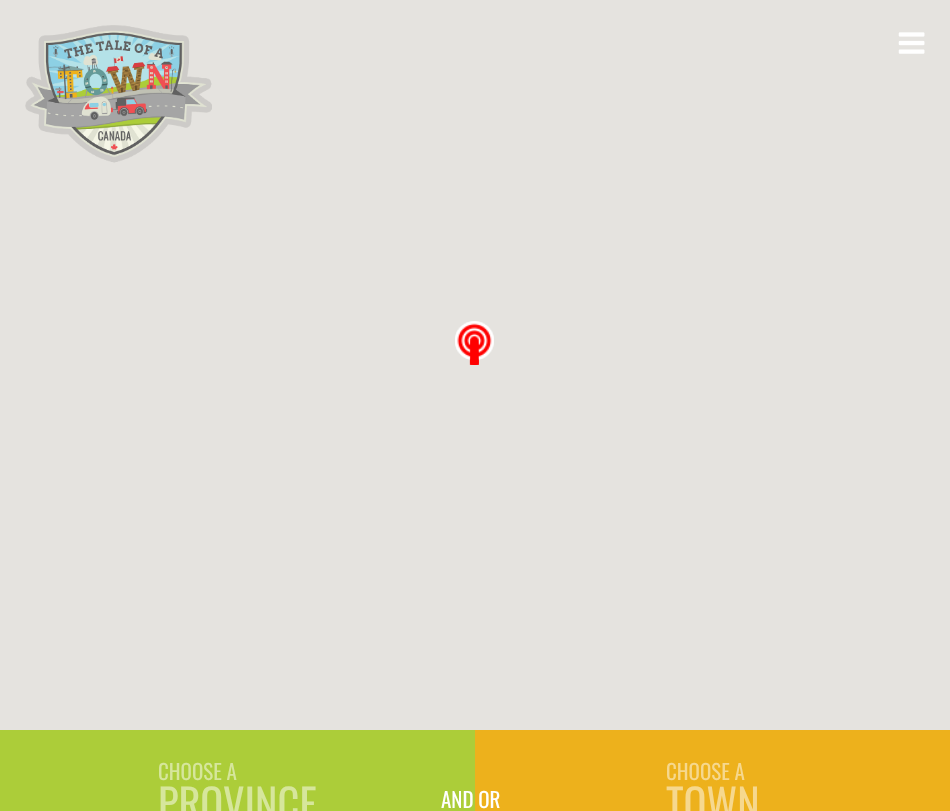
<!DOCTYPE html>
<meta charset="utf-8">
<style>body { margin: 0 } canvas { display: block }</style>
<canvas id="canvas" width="950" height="811"></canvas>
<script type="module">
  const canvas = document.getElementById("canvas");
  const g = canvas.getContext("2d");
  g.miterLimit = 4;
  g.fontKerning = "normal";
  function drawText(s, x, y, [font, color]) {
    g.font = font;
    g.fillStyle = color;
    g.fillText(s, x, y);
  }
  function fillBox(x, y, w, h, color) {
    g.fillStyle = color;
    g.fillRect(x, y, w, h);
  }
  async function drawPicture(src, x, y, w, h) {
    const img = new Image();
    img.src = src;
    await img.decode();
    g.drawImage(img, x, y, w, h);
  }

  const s1 = ["21px Oswald", "#D6E69C"];
  const s2 = ["42.5px Oswald", "#D6E69C"];
  const s3 = ["21px Oswald", "#FFFFFF"];
  const s4 = ["21px Oswald", "#F6D88E"];
  const s5 = ["42.5px Oswald", "#F6D88E"];

  fillBox(0, 0, 950, 811, "#E5E3DF");
  await drawPicture("pic1.png", 25, 25, 187, 138);
  await drawPicture("pic2.png", 898, 32, 27, 22);
  await drawPicture("pic3.png", 455, 321, 39, 44);
  await drawPicture("pic4.png", 455, 321, 39, 44);
  fillBox(0, 730, 475, 81, "#ACCD39");
  drawText("CHOOSE A", 158, 780, s1);
  drawText("PROVINCE", 158, 821, s2);
  fillBox(475, 730, 475, 81, "#EDB11C");
  drawText("AND OR", 441, 808, s3);
  drawText("CHOOSE A", 666, 780, s4);
  drawText("TOWN", 666, 821, s5);
</script>
